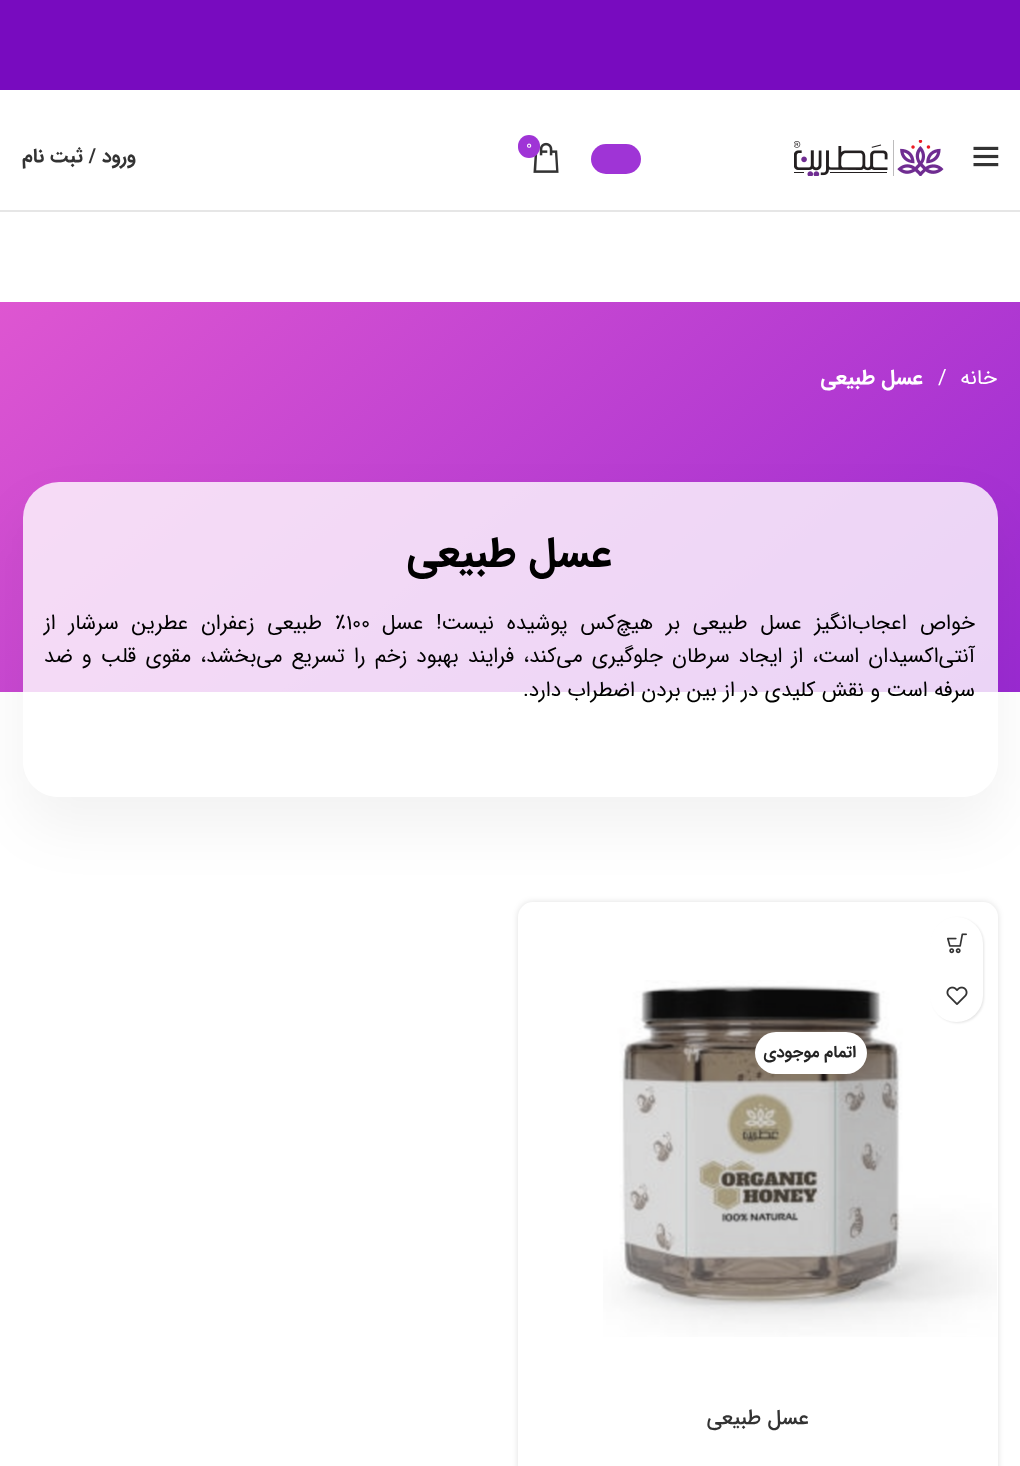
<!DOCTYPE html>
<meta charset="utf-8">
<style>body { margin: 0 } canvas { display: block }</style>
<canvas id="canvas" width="1020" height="1466"></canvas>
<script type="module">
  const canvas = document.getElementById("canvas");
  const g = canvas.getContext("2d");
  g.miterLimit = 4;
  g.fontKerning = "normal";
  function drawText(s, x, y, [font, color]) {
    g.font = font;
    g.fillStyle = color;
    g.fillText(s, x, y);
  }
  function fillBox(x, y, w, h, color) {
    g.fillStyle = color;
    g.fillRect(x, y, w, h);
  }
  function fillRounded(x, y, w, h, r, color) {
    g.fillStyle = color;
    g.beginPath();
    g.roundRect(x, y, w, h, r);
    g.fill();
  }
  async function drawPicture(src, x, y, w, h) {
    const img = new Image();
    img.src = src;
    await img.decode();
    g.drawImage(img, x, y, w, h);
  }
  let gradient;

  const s1 = ["14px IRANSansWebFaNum", "#FFFFFF"];
  const s2 = ["bold 19.5px IRANSansWebFaNum", "#333333"];
  const s3 = ["21px IRANSansWebFaNum", "#FFFFFF"];
  const s4 = ["bold 21px IRANSansWebFaNum", "#FFFFFF"];
  const s5 = ["bold 42px IRANSansWebFaNum", "#000000"];
  const s6 = ["21px IRANSansWebFaNum", "#000000"];
  const s7 = ["bold 16.5px IRANSansWebFaNum", "#242424"];
  const s8 = ["500 21px IRANSansWebFaNum", "#333333"];

  fillBox(0, 0, 1020, 1466, "#FFFFFF");
  fillBox(0, 0, 1020, 90, "#780BBF");
  fillBox(0, 210, 1020, 2, "#E6E6E6");
  await drawPicture("pic1.png", 973, 146, 26, 21);
  await drawPicture("pic2.png", 794, 140, 150, 36);
  fillRounded(591, 144, 50, 30, 15, "#9F34D6");
  await drawPicture("pic3.png", 533, 142, 26, 31);
  fillRounded(518, 135, 22, 23, 11, "#9F34D6");
  drawText("0", 526, 149, s1);
  g.direction = "rtl";
  drawText("ورود / ثبت نام", 136, 162, s2);
  gradient = g.createLinearGradient(817, 862, 203, 131);
  gradient.addColorStop(0, "#9A2AD2");
  gradient.addColorStop(1, "#DE56D1");
  g.fillStyle = gradient;
  g.fillRect(0, 302, 1020, 390);
  drawText("خانه", 997, 384, s3);
  g.direction = "ltr";
  drawText("/", 938, 384, s3);
  g.direction = "rtl";
  drawText("عسل طبیعی", 923, 384, s4);
  g.save();
  g.beginPath();
  g.moveTo(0, 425);
  g.lineTo(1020, 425);
  g.lineTo(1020, 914);
  g.lineTo(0, 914);
  g.closePath();
  g.moveTo(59, 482);
  g.lineTo(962, 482);
  g.bezierCurveTo(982, 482, 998, 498, 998, 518);
  g.lineTo(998, 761);
  g.bezierCurveTo(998, 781, 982, 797, 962, 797);
  g.lineTo(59, 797);
  g.bezierCurveTo(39, 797, 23, 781, 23, 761);
  g.lineTo(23, 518);
  g.bezierCurveTo(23, 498, 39, 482, 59, 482);
  g.closePath();
  g.clip("evenodd");
  g.fillStyle = "rgba(0, 0, 0, 0.05)";
  g.filter = "blur(28.5px)";
  g.beginPath();
  g.roundRect(23, 512, 975, 315, 36);
  g.fill();
  g.filter = "none";
  g.restore();
  fillRounded(23, 482, 975, 315, 36, "rgba(255, 255, 255, 0.8)");
  drawText("عسل طبیعی", 612, 566, s5);
  g.wordSpacing = "6.5px";
  drawText("خواص اعجاب‌انگیز عسل طبیعی بر هیچ‌کس پوشیده نیست! عسل", 975, 629, s6);
  g.wordSpacing = "0px";
  g.direction = "ltr";
  drawText("۱۰۰", 346, 629, s6);
  g.wordSpacing = "6.5px";
  g.direction = "rtl";
  drawText("٪ طبیعی زعفران عطرین سرشار از", 346, 629, s6);
  g.wordSpacing = "2.75px";
  drawText("آنتی‌اکسیدان است، از ایجاد سرطان جلوگیری می‌کند، فرایند بهبود زخم را تسریع می‌بخشد، مقوی قلب و ضد", 975, 662, s6);
  g.wordSpacing = "0px";
  drawText("سرفه است و نقش کلیدی در از بین بردن اضطراب دارد.", 975, 696, s6);
  g.fillStyle = "rgba(0, 0, 0, 0.12)";
  g.filter = "blur(3px)";
  g.beginPath();
  g.roundRect(518, 902, 480, 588, 15);
  g.fill();
  g.filter = "none";
  fillRounded(518, 902, 480, 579, 15, "#FFFFFF");
  await drawPicture("pic6.png", 603, 980, 394, 357);
  g.fillStyle = "rgba(0, 0, 0, 0.1)";
  g.filter = "blur(1px)";
  g.beginPath();
  g.roundRect(932, 918, 52, 105, 26);
  g.fill();
  g.filter = "none";
  fillRounded(930, 917, 53, 105, 26.5, "#FFFFFF");
  await drawPicture("pic4.png", 947, 933, 20, 21);
  await drawPicture("pic5.png", 946, 986, 22, 19);
  fillRounded(755, 1032, 112, 42, 21, "#FFFFFF");
  drawText("اتمام موجودی", 856, 1057, s7);
  drawText("عسل طبیعی", 809, 1424, s8);
</script>
